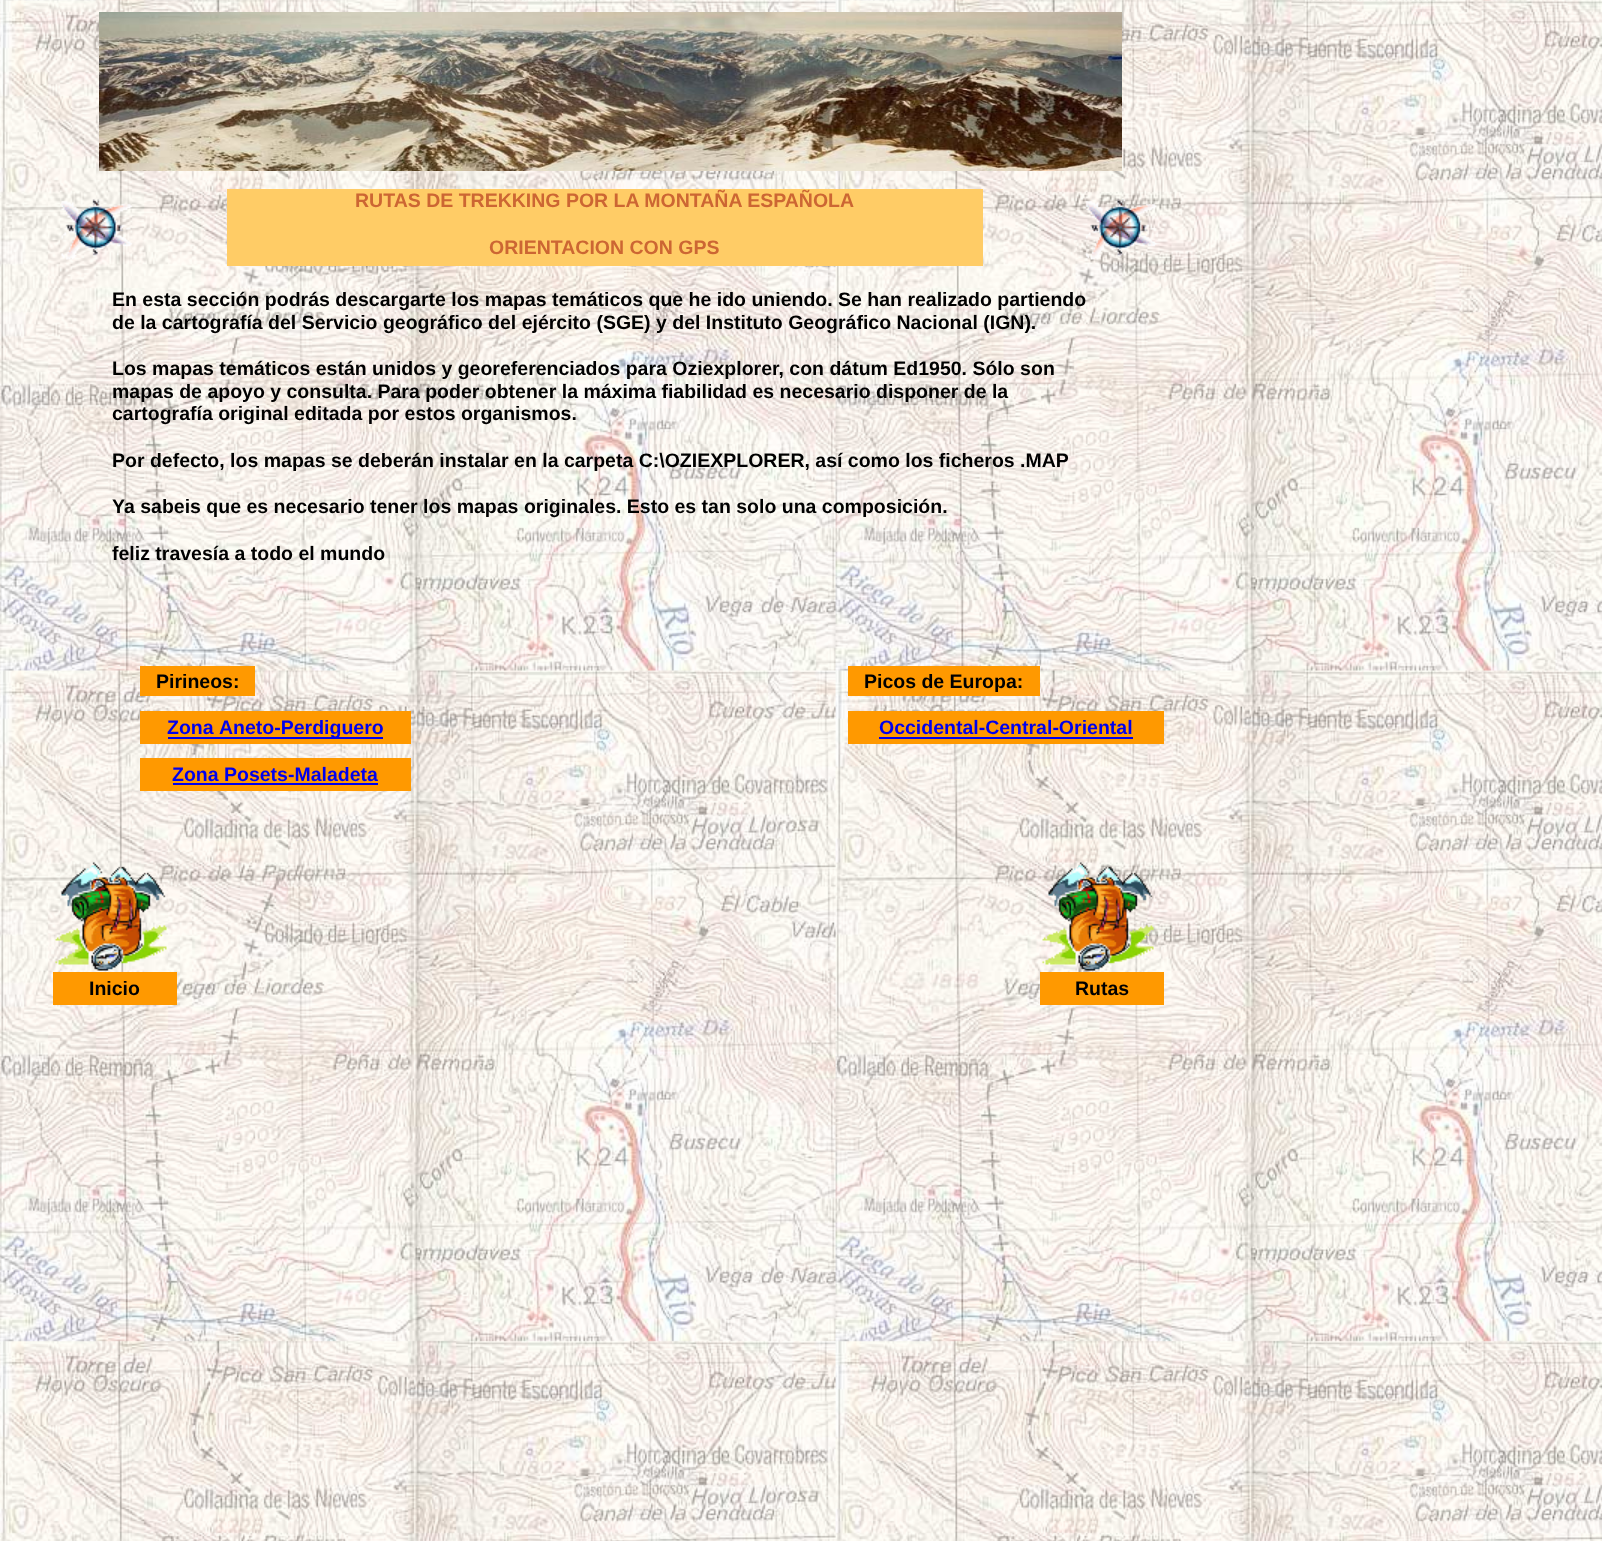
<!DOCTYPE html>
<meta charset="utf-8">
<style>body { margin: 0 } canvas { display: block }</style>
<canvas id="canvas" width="1602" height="1541"></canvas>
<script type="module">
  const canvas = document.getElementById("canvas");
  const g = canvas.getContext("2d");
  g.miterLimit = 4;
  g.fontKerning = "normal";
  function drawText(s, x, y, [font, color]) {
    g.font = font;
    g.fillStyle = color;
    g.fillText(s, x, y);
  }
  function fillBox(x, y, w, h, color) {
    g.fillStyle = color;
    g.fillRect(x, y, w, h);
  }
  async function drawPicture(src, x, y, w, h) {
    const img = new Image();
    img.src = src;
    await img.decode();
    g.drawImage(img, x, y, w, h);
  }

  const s1 = ["bold 19.5px Liberation Sans", "#CC6633"];
  const s2 = ["bold 19.5px Liberation Sans", "#000000"];
  const s3 = ["bold 19.5px Liberation Sans", "#0000EE"];

  fillBox(0, 0, 1602, 1541, "#FFFFFF");
  await drawPicture("pic1.png", 0, 0, 1602, 1541);
  await drawPicture("pic2.png", 99, 12, 1023, 159);
  await drawPicture("pic3.png", 61, 199, 72, 61);
  fillBox(227, 189, 756, 77, "#FFCC66");
  drawText("RUTAS DE TREKKING POR LA MONTAÑA ESPAÑOLA", 355, 207, s1);
  drawText("ORIENTACION CON GPS", 489, 254, s1);
  await drawPicture("pic4.png", 1085, 199, 72, 61);
  drawText("En esta sección podrás descargarte los mapas temáticos que he ido uniendo. Se han realizado partiendo", 112, 306, s2);
  drawText("de la cartografía del Servicio geográfico del ejército (SGE) y del Instituto Geográfico Nacional (IGN).", 112, 329, s2);
  drawText("Los mapas temáticos están unidos y georeferenciados para Oziexplorer, con dátum Ed1950. Sólo son", 112, 375, s2);
  drawText("mapas de apoyo y consulta. Para poder obtener la máxima fiabilidad es necesario disponer de la", 112, 398, s2);
  drawText("cartografía original editada por estos organismos.", 112, 420, s2);
  drawText("Por defecto, los mapas se deberán instalar en la carpeta C:\\OZIEXPLORER, así como los ficheros .MAP", 112, 467, s2);
  drawText("Ya sabeis que es necesario tener los mapas originales. Esto es tan solo una composición.", 112, 513, s2);
  drawText("feliz travesía a todo el mundo", 112, 560, s2);
  fillBox(140, 666, 115, 30, "#FF9900");
  drawText("Pirineos:", 156, 688, s2);
  fillBox(848, 666, 192, 30, "#FF9900");
  drawText("Picos de Europa:", 864, 688, s2);
  fillBox(140, 711, 271, 33, "#FF9900");
  drawText("Zona", 167, 734, s3);
  fillBox(168, 737, 215, 2, "#0000EE");
  drawText("Aneto-Perdiguero", 219, 734, s3);
  fillBox(848, 711, 316, 33, "#FF9900");
  drawText("Occidental-Central-Oriental", 879, 734, s3);
  fillBox(879, 737, 254, 2, "#0000EE");
  fillBox(140, 758, 271, 33, "#FF9900");
  drawText("Zona Posets-Maladeta", 172, 781, s3);
  fillBox(173, 783, 205, 2, "#0000EE");
  await drawPicture("pic5.png", 55, 862, 112, 109);
  await drawPicture("pic6.png", 1042, 862, 112, 109);
  fillBox(53, 972, 124, 33, "#FF9900");
  drawText("Inicio", 89, 995, s2);
  fillBox(1040, 972, 124, 33, "#FF9900");
  drawText("Rutas", 1075, 995, s2);
</script>
